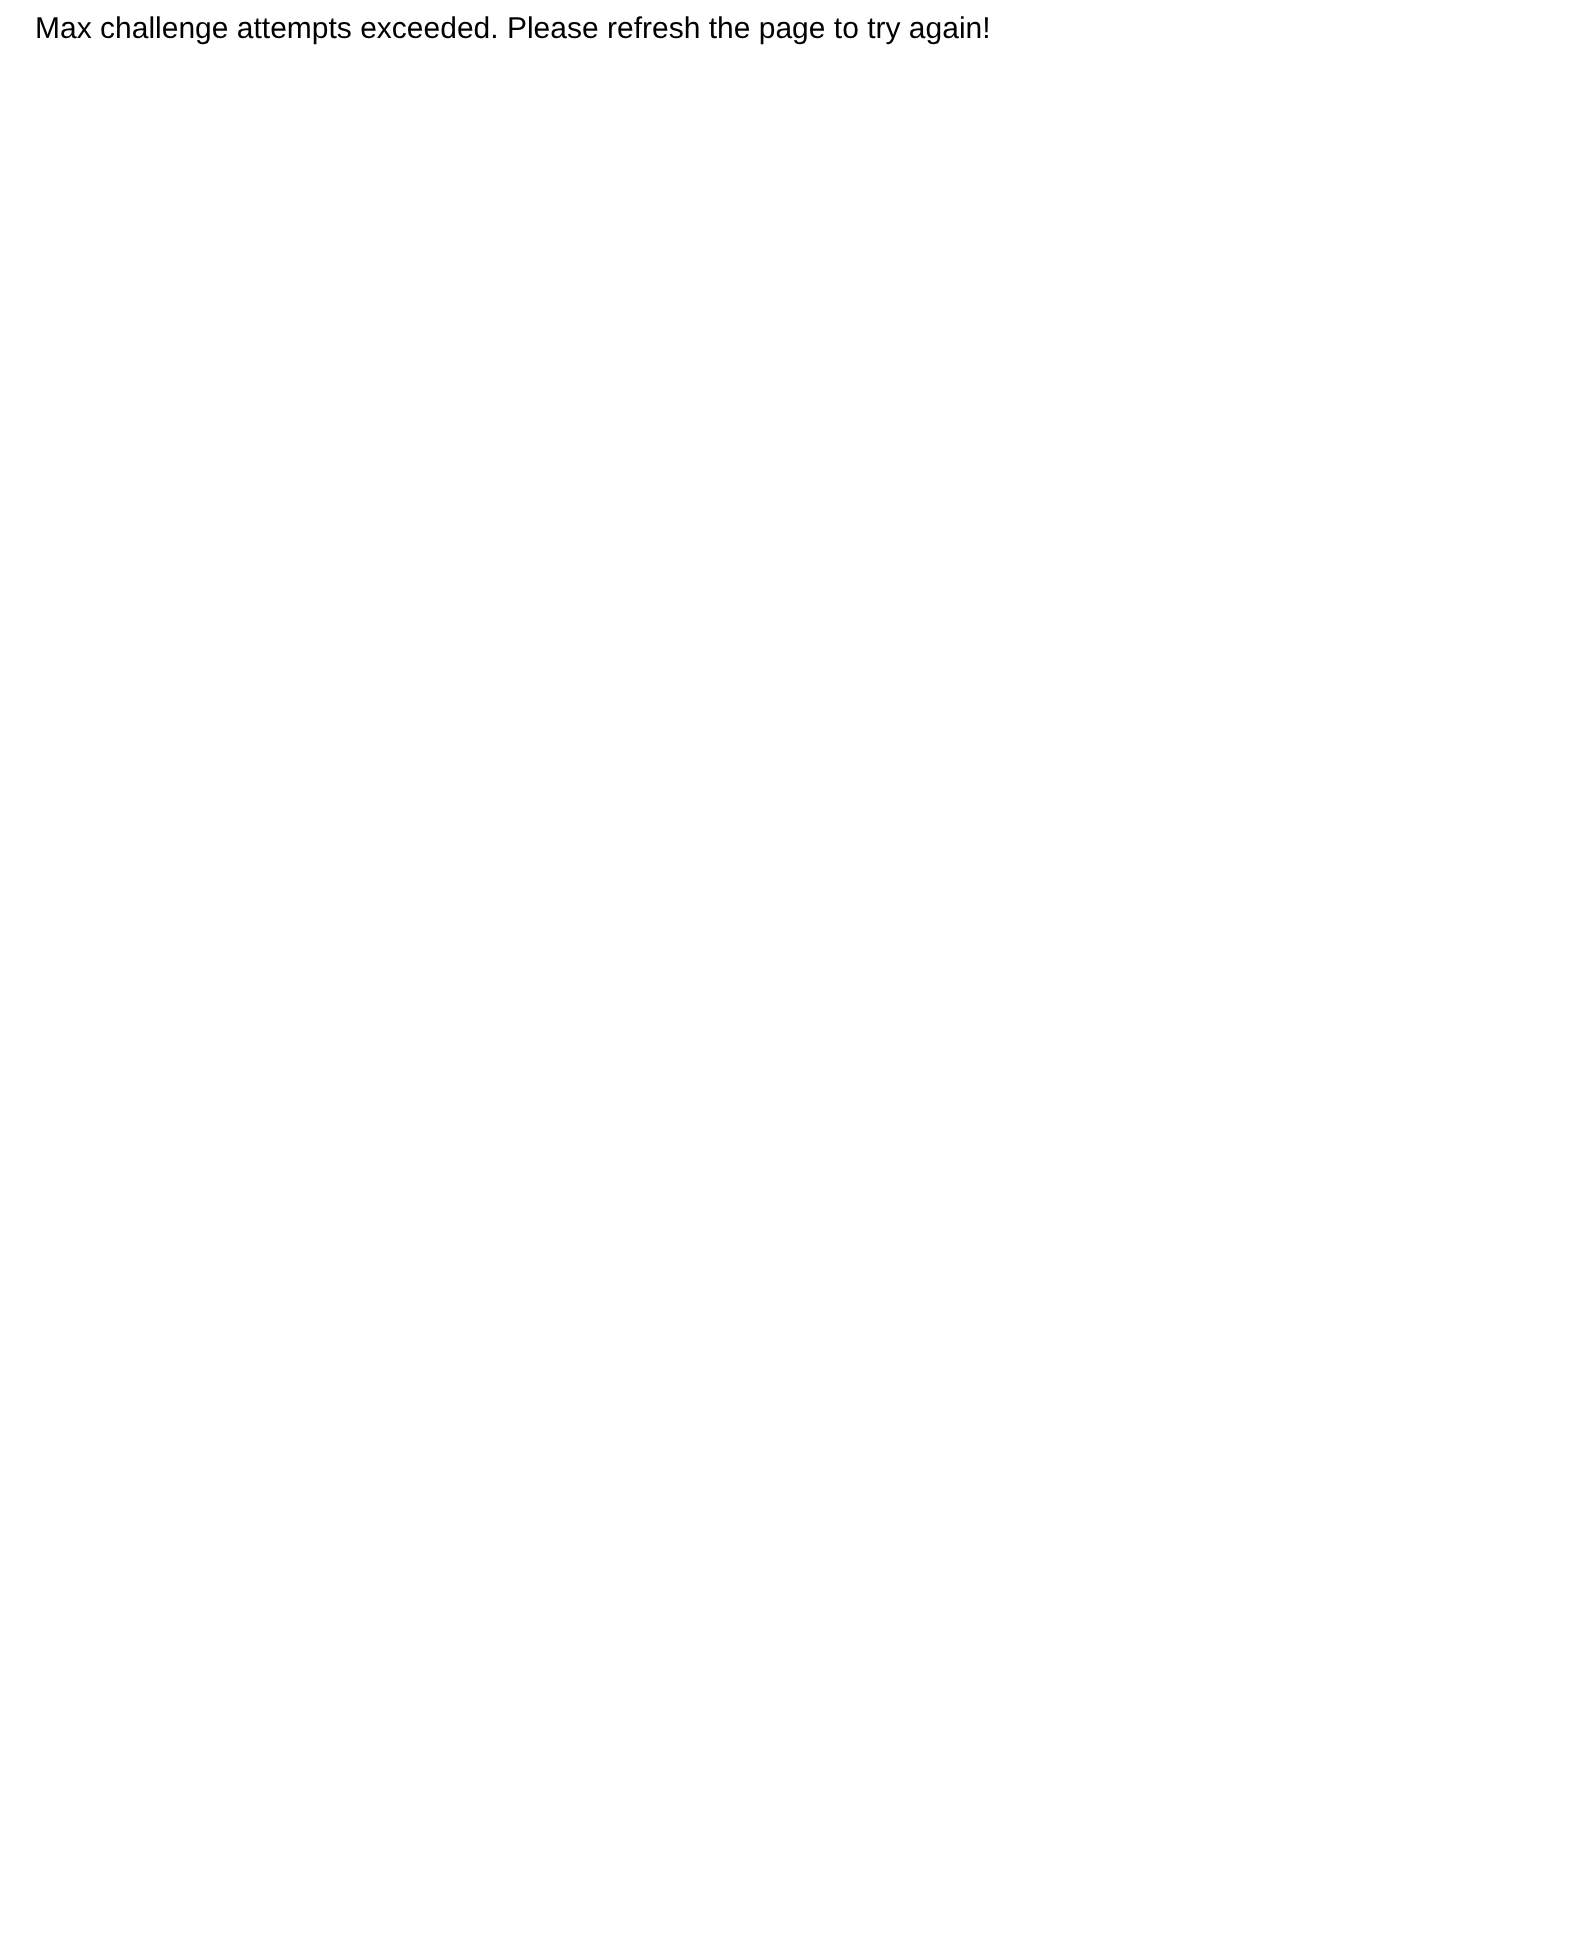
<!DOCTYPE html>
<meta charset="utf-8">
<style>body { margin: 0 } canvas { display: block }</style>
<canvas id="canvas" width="1569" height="1940"></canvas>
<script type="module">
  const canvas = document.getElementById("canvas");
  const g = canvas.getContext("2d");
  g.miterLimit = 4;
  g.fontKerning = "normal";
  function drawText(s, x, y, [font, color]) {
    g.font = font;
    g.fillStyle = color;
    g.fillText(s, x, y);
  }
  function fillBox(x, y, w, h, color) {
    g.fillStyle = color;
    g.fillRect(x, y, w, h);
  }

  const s1 = ["30px Liberation Sans", "#000000"];

  fillBox(0, 0, 1569, 1940, "#FFFFFF");
  drawText("Max challenge attempts exceeded. Please refresh the page to try again!", 35, 38, s1);
</script>
